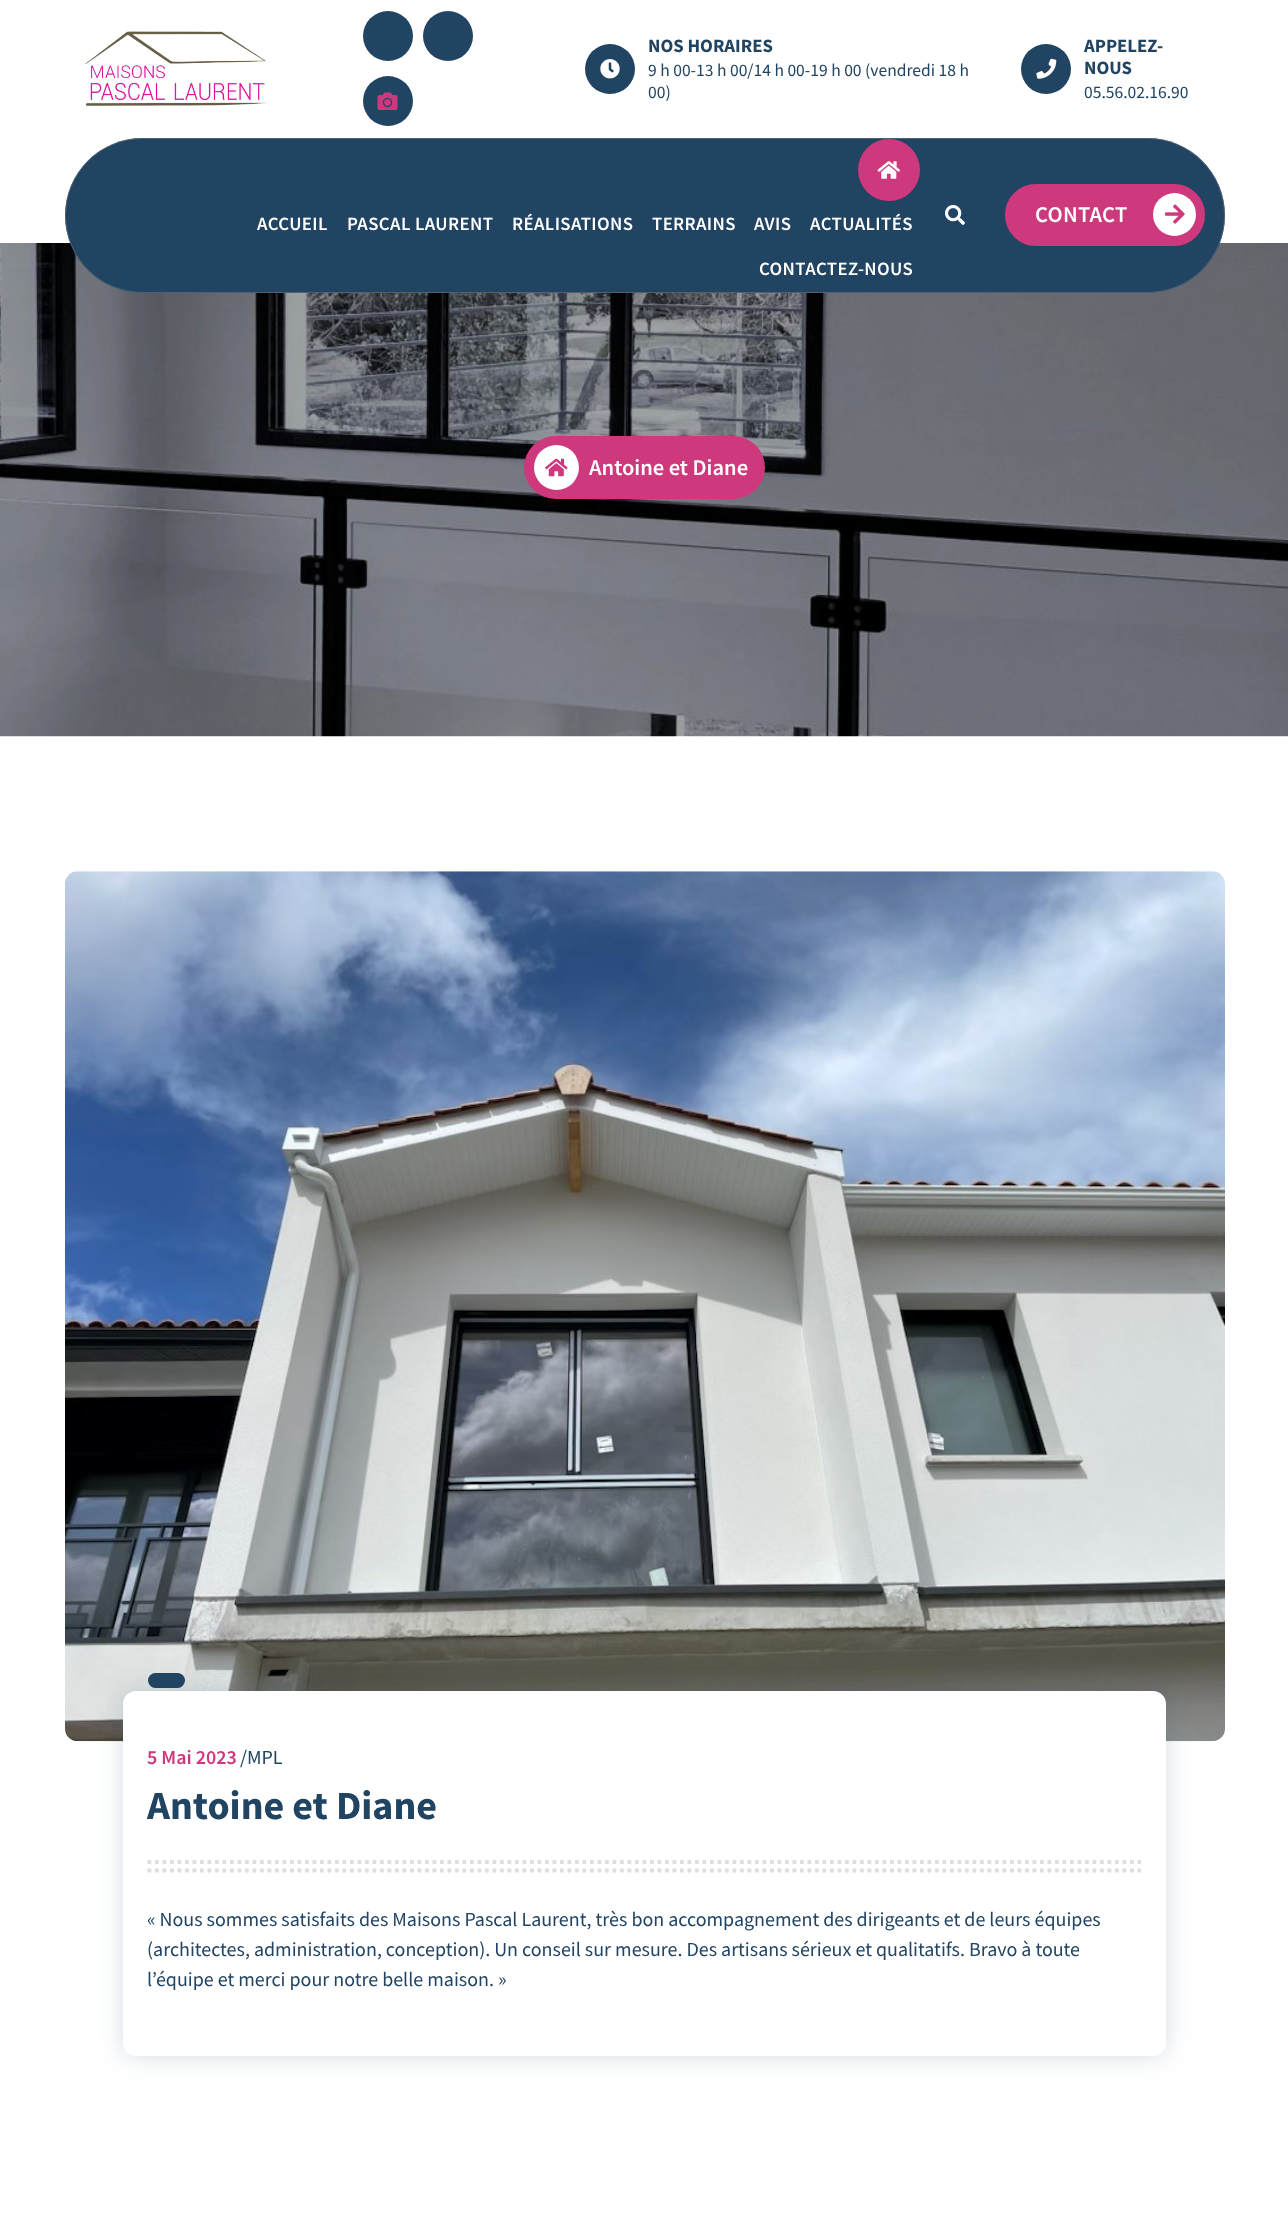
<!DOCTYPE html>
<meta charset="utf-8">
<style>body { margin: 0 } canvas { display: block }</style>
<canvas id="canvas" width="1288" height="2225"></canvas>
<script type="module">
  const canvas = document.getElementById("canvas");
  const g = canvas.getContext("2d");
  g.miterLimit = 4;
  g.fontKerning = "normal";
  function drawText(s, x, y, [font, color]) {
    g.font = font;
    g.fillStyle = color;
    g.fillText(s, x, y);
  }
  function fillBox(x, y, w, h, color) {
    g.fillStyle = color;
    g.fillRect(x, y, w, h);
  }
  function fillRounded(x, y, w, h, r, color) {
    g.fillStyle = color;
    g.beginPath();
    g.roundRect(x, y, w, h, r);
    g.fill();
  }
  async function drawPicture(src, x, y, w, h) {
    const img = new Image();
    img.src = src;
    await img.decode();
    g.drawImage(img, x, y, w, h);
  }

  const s1 = ["bold 18.75px Source Sans Pro", "#214462"];
  const s2 = ["17.5px Source Sans Pro", "#214462"];
  const s3 = ["600 18.75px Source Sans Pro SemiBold", "#FFFFFF"];
  const s4 = ["600 22.5px Source Sans Pro SemiBold", "#FFFFFF"];
  const s5 = ["600 20px Source Sans Pro SemiBold", "#CE397D"];
  const s6 = ["20px Source Sans Pro", "#214462"];
  const s7 = ["bold 40px Source Sans Pro", "#214462"];

  fillBox(0, 0, 1288, 2225, "#FFFFFF");
  await drawPicture("pic1.png", 85, 31, 182, 75);
  g.fillStyle = "#214462";
  g.beginPath();
  g.arc(388, 36, 25, 0, Math.PI * 2);
  g.fill();
  g.beginPath();
  g.arc(448, 36, 25, 0, Math.PI * 2);
  g.fill();
  g.beginPath();
  g.arc(388, 101, 25, 0, Math.PI * 2);
  g.fill();
  await drawPicture("pic2.png", 377, 92, 21, 18);
  g.beginPath();
  g.arc(610, 69, 25, 0, Math.PI * 2);
  g.fill();
  await drawPicture("pic3.png", 600, 59, 20, 20);
  drawText("NOS HORAIRES", 648, 52, s1);
  drawText("9 h 00-13 h 00/14 h 00-19 h 00 (vendredi 18 h", 648, 76, s2);
  drawText("00)", 648, 98, s2);
  g.beginPath();
  g.arc(1046, 69, 25, 0, Math.PI * 2);
  g.fill();
  await drawPicture("pic4.png", 1036, 58, 21, 21);
  drawText("APPELEZ-", 1084, 52, s1);
  drawText("NOUS", 1084, 74, s1);
  drawText("05.56.02.16.90", 1084, 98, s2);
  await drawPicture("pic8.png", 0, 243, 1288, 494);
  fillRounded(65, 138, 1160, 155, 77.5, "#214462");
  g.beginPath();
  g.roundRect(65.5, 138.5, 1159, 154, 77);
  g.strokeStyle = "rgba(108, 117, 125, 0.6)";
  g.stroke();
  g.fillStyle = "#CE397D";
  g.beginPath();
  g.arc(889, 170, 31, 0, Math.PI * 2);
  g.fill();
  await drawPicture("pic5.png", 877, 161, 23, 18);
  g.letterSpacing = "0.4px";
  drawText("ACCUEIL", 257, 230, s3);
  drawText("PASCAL LAURENT", 347, 230, s3);
  drawText("RÉALISATIONS", 512, 230, s3);
  drawText("TERRAINS", 652, 230, s3);
  drawText("AVIS", 754, 230, s3);
  drawText("ACTUALITÉS", 810, 230, s3);
  drawText("CONTACTEZ-NOUS", 759, 275, s3);
  await drawPicture("pic6.png", 945, 205, 20, 20);
  g.fillStyle = "#CE397D";
  g.beginPath();
  g.roundRect(1006.5, 185.5, 197, 59, 29.5);
  g.fill();
  g.strokeStyle = "#CE397D";
  g.lineWidth = 3;
  g.stroke();
  g.letterSpacing = "0.25px";
  drawText("CONTACT", 1035, 222, s4);
  g.beginPath();
  g.arc(1174.5, 214.5, 21.5, 0, Math.PI * 2);
  g.fill();
  await drawPicture("pic7.png", 1165, 204, 20, 20);
  fillRounded(524, 436, 241, 63, 31.5, "#CE397D");
  g.fillStyle = "#FFFFFF";
  g.beginPath();
  g.arc(556.5, 467.5, 22.5, 0, Math.PI * 2);
  g.fill();
  await drawPicture("pic9.png", 545, 458, 23, 19);
  g.letterSpacing = "0px";
  drawText("Antoine et Diane", 589, 475, s4);
  await drawPicture("pic10.png", 65, 871, 1160, 871);
  g.fillStyle = "rgba(33, 68, 98, 0.19)";
  g.filter = "blur(12.5px)";
  g.beginPath();
  g.roundRect(123, 1691, 1043, 365, 13);
  g.fill();
  g.filter = "none";
  fillRounded(123, 1691, 1043, 365, 13, "#FFFFFF");
  fillRounded(148, 1673, 37, 15, 7.5, "#214462");
  drawText("5 Mai 2023", 147, 1764, s5);
  drawText("/", 240, 1764, s6);
  drawText("MPL", 247, 1764, s6);
  g.beginPath();
  g.moveTo(147.5, 1862);
  g.lineTo(1141, 1862);
  g.strokeStyle = "#DEDEDE";
  g.lineWidth = 3.8;
  g.setLineDash([3.75, 3.75]);
  g.stroke();
  drawText("Antoine et Diane", 147, 1819, s7);
  g.beginPath();
  g.moveTo(147.5, 1870.5);
  g.lineTo(1141, 1870.5);
  g.stroke();
  drawText("« Nous sommes satisfaits des Maisons Pascal Laurent, très bon accompagnement des dirigeants et de leurs équipes", 147, 1926, s6);
  drawText("(architectes, administration, conception). Un conseil sur mesure. Des artisans sérieux et qualitatifs. Bravo à toute", 147, 1956, s6);
  drawText("l’équipe et merci pour notre belle maison. »", 147, 1986, s6);
</script>
